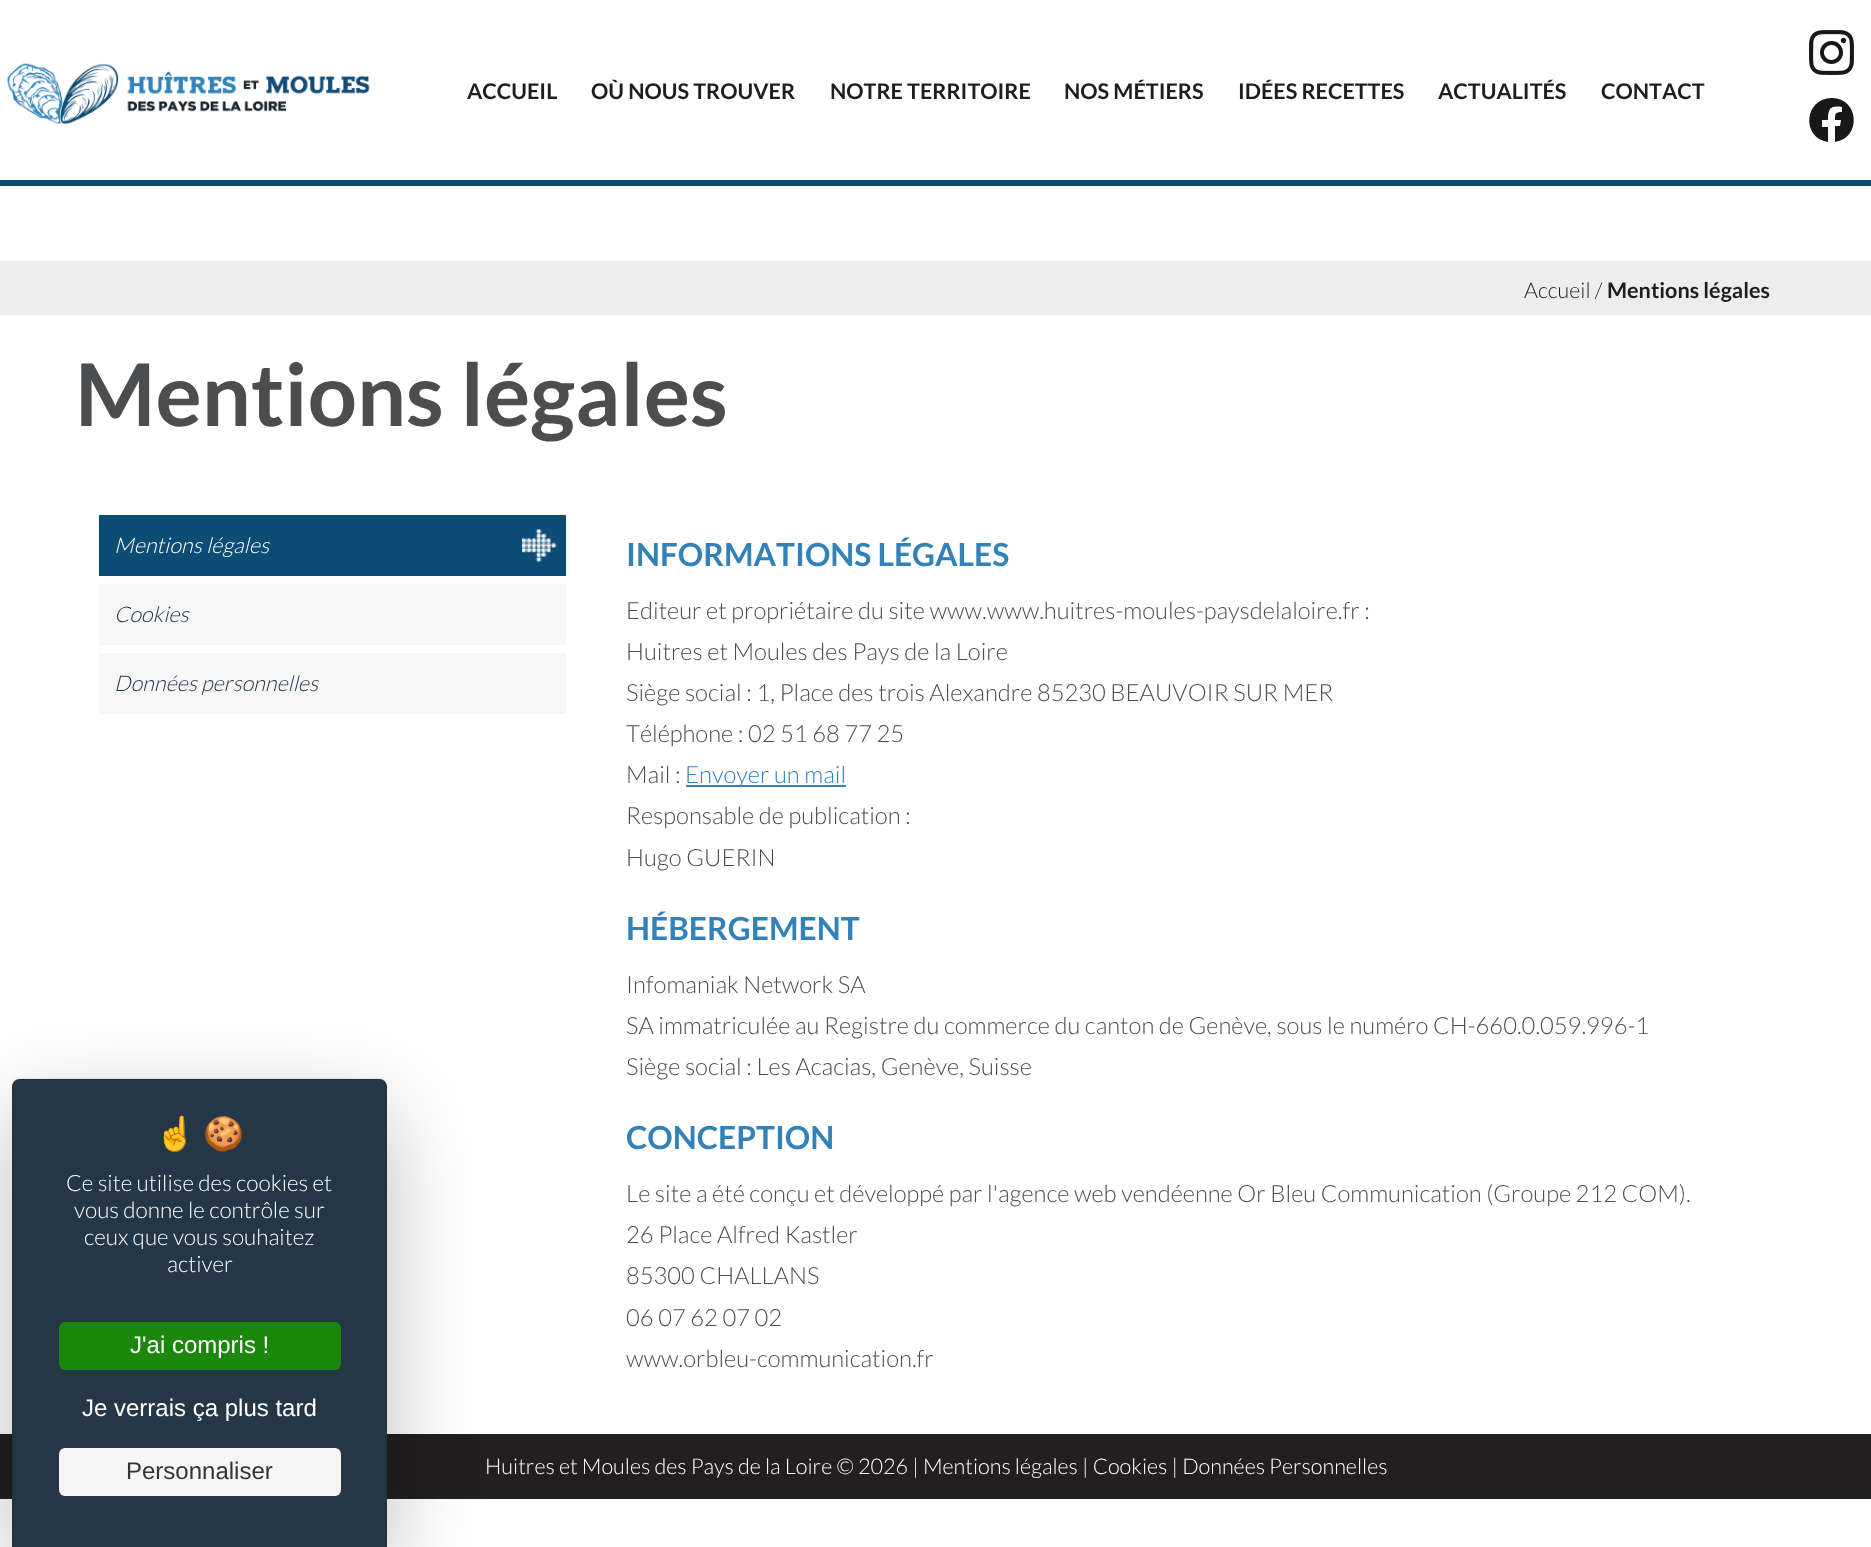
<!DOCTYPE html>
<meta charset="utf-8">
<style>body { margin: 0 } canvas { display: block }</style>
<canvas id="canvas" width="1871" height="1547"></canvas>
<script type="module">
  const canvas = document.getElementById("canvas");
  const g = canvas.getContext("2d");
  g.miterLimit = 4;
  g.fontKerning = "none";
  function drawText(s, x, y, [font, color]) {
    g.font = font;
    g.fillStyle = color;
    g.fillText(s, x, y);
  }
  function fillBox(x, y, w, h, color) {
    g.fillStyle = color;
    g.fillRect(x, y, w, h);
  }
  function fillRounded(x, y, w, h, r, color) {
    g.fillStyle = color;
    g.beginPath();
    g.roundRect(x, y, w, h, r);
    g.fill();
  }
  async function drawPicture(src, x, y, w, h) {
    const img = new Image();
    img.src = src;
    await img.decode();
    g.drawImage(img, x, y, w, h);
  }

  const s1 = ["bold 21.6px Lato", "#1E1E1E"];
  const s2 = ["300 21.6px Lato", "#1E1E1E"];
  const s3 = ["bold 86.5px Lato", "#4C4D4F"];
  const s4 = ["italic 300 21.6px Lato", "#FFFFFF"];
  const s5 = ["italic 300 21.6px Lato", "#243746"];
  const s6 = ["bold 31.75px Lato", "#3282B8"];
  const s7 = ["300 23.75px Lato", "#4C4D4F"];
  const s8 = ["300 23.75px Lato", "#3282B8"];
  const s9 = ["300 21.6px Lato", "#FFFFFF"];
  const s10 = ["33px Noto Color Emoji", "#FFFFFF"];
  const s11 = ["300 22.5px Lato", "#FFFFFF"];
  const s12 = ["24px Liberation Sans", "#FFFFFF"];
  const s13 = ["24px Liberation Sans", "#333333"];

  fillBox(0, 0, 1871, 1547, "#FFFFFF");
  fillBox(0, 180, 1871, 6, "#0C4C75");
  await drawPicture("pic1.png", 7, 63, 363, 62);
  drawText("ACCUEIL", 467, 99, s1);
  drawText("OÙ NOUS TROUVER", 591, 99, s1);
  drawText("NOTRE TERRITOIRE", 830, 99, s1);
  drawText("NOS MÉTIERS", 1064, 99, s1);
  drawText("IDÉES RECETTES", 1238, 99, s1);
  drawText("ACTUALITÉS", 1438, 99, s1);
  drawText("CONTACT", 1601, 99, s1);
  await drawPicture("pic2.png", 1809, 30, 45, 45);
  g.fillStyle = "#1A171B";
  g.beginPath();
  g.moveTo(1832, 98);
  g.bezierCurveTo(1804, 98, 1801, 138, 1828, 142);
  g.lineTo(1828, 127);
  g.lineTo(1822, 127);
  g.lineTo(1822, 120);
  g.lineTo(1828, 120);
  g.bezierCurveTo(1828, 109, 1830, 105, 1842, 107);
  g.lineTo(1842, 112);
  g.bezierCurveTo(1835, 112, 1835, 114, 1835, 120);
  g.lineTo(1841, 120);
  g.lineTo(1840, 126);
  g.lineTo(1835, 126);
  g.lineTo(1835, 142);
  g.bezierCurveTo(1862, 138, 1859, 98, 1832, 98);
  g.fill();
  fillBox(0, 261, 1871, 54, "#EDEDED");
  drawText("Accueil /", 1524, 298, s2);
  drawText("Mentions légales", 1607, 298, s1);
  drawText("Mentions légales", 75, 426, s3);
  fillBox(99, 515, 467, 61, "#0C4C75");
  await drawPicture("pic3.png", 522, 529, 35, 34);
  drawText("Mentions légales", 114, 553, s4);
  fillBox(99, 584, 467, 61, "#F6F6F6");
  drawText("Cookies", 114, 622, s5);
  fillBox(99, 653, 467, 61, "#F6F6F6");
  drawText("Données personnelles", 114, 691, s5);
  drawText("INFORMATIONS LÉGALES", 626, 566, s6);
  drawText("Editeur et propriétaire du site www.www.huitres-moules-paysdelaloire.fr :", 626, 619, s7);
  drawText("Huitres et Moules des Pays de la Loire", 626, 660, s7);
  drawText("Siège social : 1, Place des trois Alexandre 85230 BEAUVOIR SUR MER", 626, 701, s7);
  drawText("Téléphone : 02 51 68 77 25", 626, 742, s7);
  drawText("Mail :", 626, 783, s7);
  fillBox(686, 785, 160, 2, "#3282B8");
  drawText("Envoyer un mail", 685, 783, s8);
  drawText("Responsable de publication :", 626, 824, s7);
  drawText("Hugo GUERIN", 626, 866, s7);
  drawText("HÉBERGEMENT", 626, 940, s6);
  drawText("Infomaniak Network SA", 626, 993, s7);
  drawText("SA immatriculée au Registre du commerce du canton de Genève, sous le numéro CH-660.0.059.996-1", 626, 1034, s7);
  drawText("Siège social : Les Acacias, Genève, Suisse", 626, 1075, s7);
  drawText("CONCEPTION", 626, 1149, s6);
  drawText("Le site a été conçu et développé par l'agence web vendéenne Or Bleu Communication (Groupe 212 COM).", 626, 1202, s7);
  drawText("26 Place Alfred Kastler", 626, 1243, s7);
  drawText("85300 CHALLANS", 626, 1284, s7);
  drawText("06 07 62 07 02", 626, 1326, s7);
  drawText("www.orbleu-communication.fr", 626, 1367, s7);
  fillBox(0, 1434, 1871, 65, "#231F20");
  drawText("Huitres et Moules des Pays de la Loire © 2026 | Mentions légales | Cookies | Données Personnelles", 485, 1474, s9);
  g.fillStyle = "rgba(0, 0, 0, 0.25)";
  g.filter = "blur(45px)";
  g.beginPath();
  g.roundRect(12, 1109, 375, 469, 8);
  g.fill();
  g.filter = "none";
  g.fillStyle = "#243746";
  g.beginPath();
  g.moveTo(20, 1079);
  g.lineTo(379, 1079);
  g.bezierCurveTo(383.5, 1079, 387, 1082.5, 387, 1087);
  g.lineTo(387, 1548);
  g.lineTo(12, 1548);
  g.lineTo(12, 1087);
  g.bezierCurveTo(12, 1082.5, 15.5, 1079, 20, 1079);
  g.closePath();
  g.fill();
  g.fillStyle = "rgba(0, 0, 0, 0.08)";
  g.beginPath();
  g.moveTo(20, 1078);
  g.lineTo(380, 1078);
  g.bezierCurveTo(384, 1078, 387, 1082, 387, 1086);
  g.lineTo(387, 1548);
  g.lineTo(12, 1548);
  g.lineTo(12, 1086);
  g.bezierCurveTo(12, 1082, 15, 1078, 20, 1078);
  g.closePath();
  g.moveTo(20, 1080);
  g.lineTo(380, 1080);
  g.bezierCurveTo(383, 1080, 386, 1083, 386, 1086);
  g.lineTo(386, 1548);
  g.lineTo(14, 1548);
  g.lineTo(14, 1086);
  g.bezierCurveTo(14, 1083, 16, 1080, 20, 1080);
  g.closePath();
  g.fill("evenodd");
  drawText("☝️", 155, 1145, s10);
  drawText("🍪", 203, 1145, s10);
  drawText("Ce site utilise des cookies et", 66, 1191, s11);
  drawText("vous donne le contrôle sur", 74, 1218, s11);
  drawText("ceux que vous souhaitez", 84, 1245, s11);
  drawText("activer", 167, 1272, s11);
  fillRounded(59, 1322, 282, 48, 6, "#1B870B");
  drawText("J'ai compris !", 130, 1353, s12);
  drawText("Je verrais ça plus tard", 82, 1416, s12);
  fillRounded(59, 1448, 282, 48, 6, "#F5F5F5");
  drawText("Personnaliser", 126, 1479, s13);
</script>
